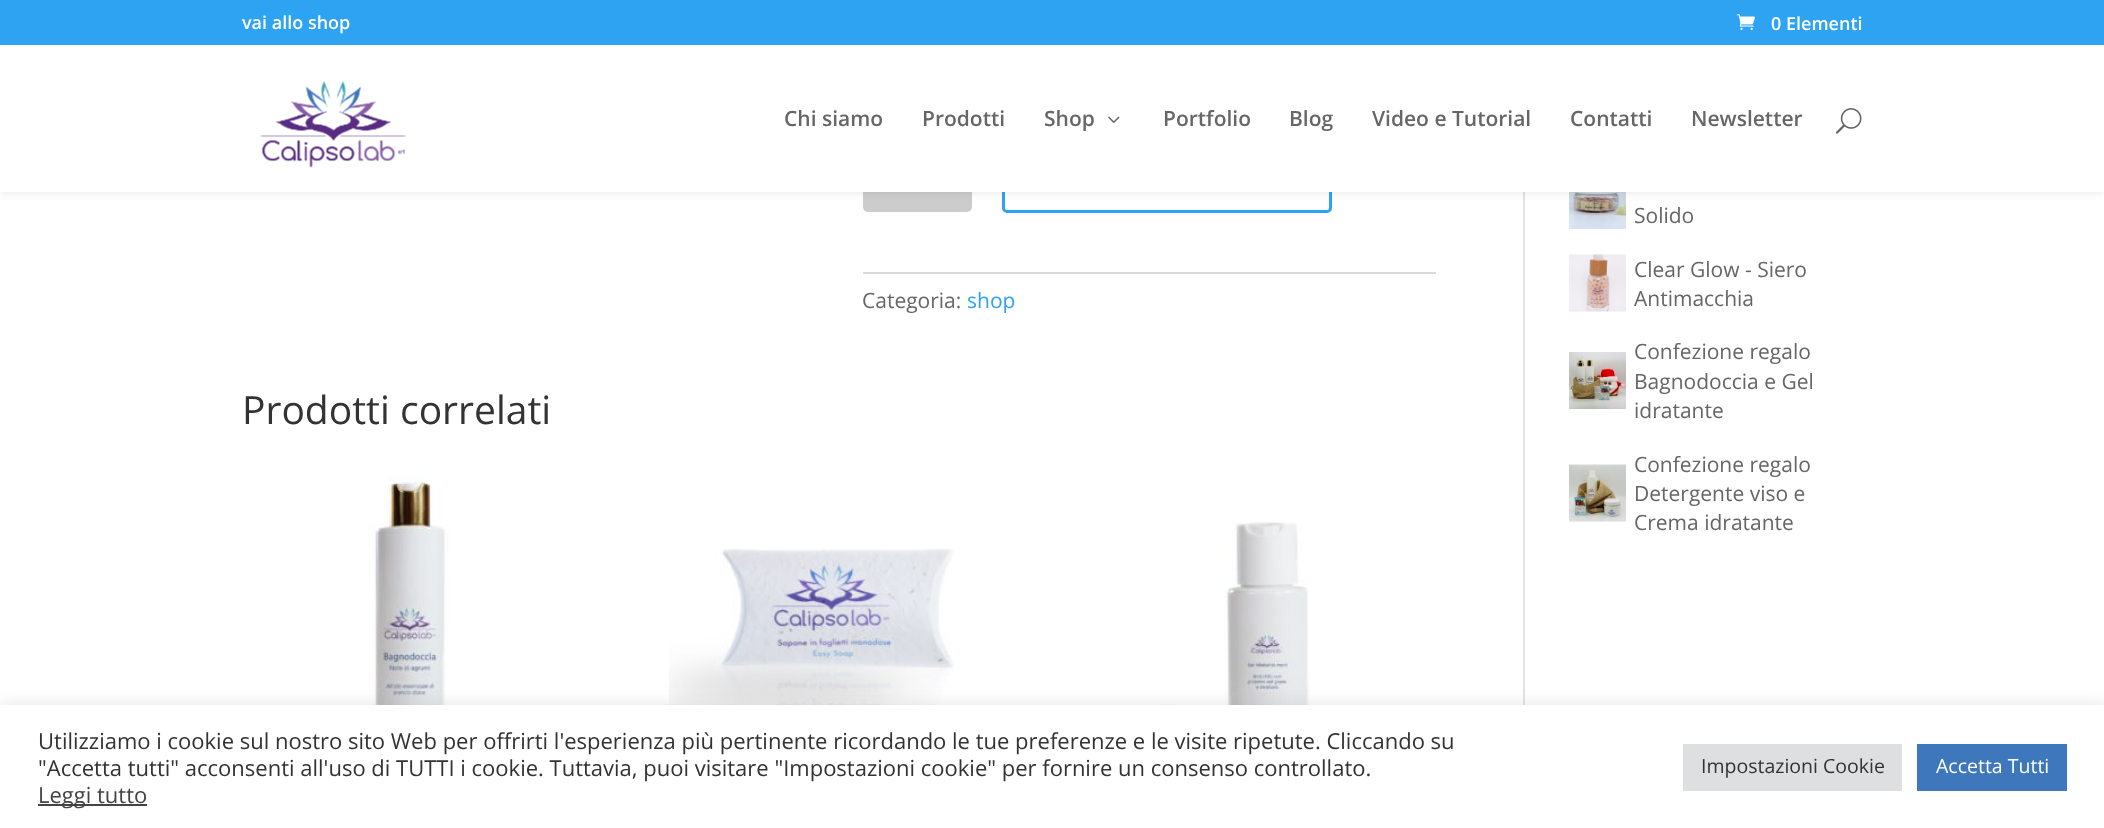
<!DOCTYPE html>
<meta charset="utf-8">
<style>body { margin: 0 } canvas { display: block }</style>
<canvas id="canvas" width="2104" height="828"></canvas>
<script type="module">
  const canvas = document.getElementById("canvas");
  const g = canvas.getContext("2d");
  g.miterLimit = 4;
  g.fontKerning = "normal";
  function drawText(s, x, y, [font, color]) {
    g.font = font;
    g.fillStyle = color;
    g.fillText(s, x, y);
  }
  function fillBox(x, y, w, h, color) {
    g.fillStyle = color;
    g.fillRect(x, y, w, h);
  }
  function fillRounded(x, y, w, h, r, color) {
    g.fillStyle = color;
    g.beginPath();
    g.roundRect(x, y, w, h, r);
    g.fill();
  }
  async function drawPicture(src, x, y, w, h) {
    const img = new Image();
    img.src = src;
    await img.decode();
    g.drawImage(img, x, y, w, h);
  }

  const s1 = ["600 18px Open Sans", "#FFFFFF"];
  const s2 = ["600 21px Open Sans", "#666666"];
  const s3 = ["21px Open Sans", "#666666"];
  const s4 = ["21px Open Sans", "#2EA3F2"];
  const s5 = ["39px Open Sans", "#333333"];
  const s6 = ["22px Open Sans", "#333333"];
  const s7 = ["22px Open Sans", "#444444"];
  const s8 = ["19.5px Open Sans", "#333333"];
  const s9 = ["19.5px Open Sans", "#FFFFFF"];

  fillBox(0, 0, 2104, 828, "#FFFFFF");
  fillBox(1523, 192, 2, 513, "#E2E2E2");
  fillRounded(863, 138, 109, 74, 5, "#CCCCCC");
  g.beginPath();
  g.roundRect(1003.5, 139.5, 327, 72, 3.5);
  g.strokeStyle = "#2EA3F2";
  g.lineWidth = 3;
  g.stroke();
  await drawPicture("pic8.png", 1569, 192, 57, 37);
  g.fillStyle = "rgba(0, 0, 0, 0.1)";
  g.filter = "blur(5px)";
  g.beginPath();
  g.rect(0, 45, 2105, 147);
  g.fill();
  g.filter = "none";
  fillBox(0, 0, 2104, 45, "#2EA3F2");
  drawText("vai allo shop", 242, 29, s1);
  await drawPicture("pic1.png", 1737, 14, 18, 16);
  drawText("0 Elementi", 1771, 30, s1);
  fillBox(0, 45, 2104, 147, "#FFFFFF");
  await drawPicture("pic2.png", 260, 80, 146, 88);
  drawText("Chi siamo", 784, 126, s2);
  drawText("Prodotti", 922, 126, s2);
  drawText("Shop", 1044, 126, s2);
  await drawPicture("pic3.png", 1108, 116, 12, 7);
  drawText("Portfolio", 1163, 126, s2);
  drawText("Blog", 1289, 126, s2);
  drawText("Video e Tutorial", 1372, 126, s2);
  drawText("Contatti", 1570, 126, s2);
  drawText("Newsletter", 1691, 126, s2);
  await drawPicture("pic4.png", 1835, 108, 27, 26);
  fillBox(863, 272, 573, 2, "#DADADA");
  drawText("Categoria:", 862, 308, s3);
  drawText("shop", 967, 308, s4);
  drawText("Prodotti correlati", 242, 424, s5);
  await drawPicture("pic5.png", 315, 475, 135, 230);
  await drawPicture("pic6.png", 669, 548, 286, 157);
  await drawPicture("pic7.png", 1158, 522, 153, 183);
  drawText("Solido", 1634, 223, s3);
  await drawPicture("pic9.png", 1569, 254, 57, 58);
  drawText("Clear Glow - Siero", 1634, 277, s3);
  drawText("Antimacchia", 1634, 306, s3);
  await drawPicture("pic10.png", 1569, 352, 57, 57);
  drawText("Confezione regalo", 1634, 359, s3);
  drawText("Bagnodoccia e Gel", 1634, 389, s3);
  drawText("idratante", 1634, 418, s3);
  await drawPicture("pic11.png", 1569, 464, 57, 58);
  drawText("Confezione regalo", 1634, 472, s3);
  drawText("Detergente viso e", 1634, 501, s3);
  drawText("Crema idratante", 1634, 530, s3);
  g.fillStyle = "rgba(172, 171, 171, 0.3)";
  g.filter = "blur(7.5px)";
  g.beginPath();
  g.rect(0, 704, 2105, 123);
  g.fill();
  g.filter = "none";
  fillBox(0, 705, 2104, 123, "#FFFFFF");
  drawText("Utilizziamo i cookie sul nostro sito Web per offrirti l'esperienza più pertinente ricordando le tue preferenze e le visite ripetute. Cliccando su", 38, 749, s6);
  drawText("\"Accetta tutti\" acconsenti all'uso di TUTTI i cookie. Tuttavia, puoi visitare \"Impostazioni cookie\" per fornire un consenso controllato.", 38, 776, s6);
  fillBox(38, 804, 109, 2, "#444444");
  drawText("Leggi tutto", 38, 803, s7);
  fillBox(1683, 744, 219, 47, "#DEDFE0");
  drawText("Impostazioni Cookie", 1701, 773, s8);
  fillBox(1917, 744, 150, 47, "#3F77BC");
  drawText("Accetta Tutti", 1936, 773, s9);
</script>
